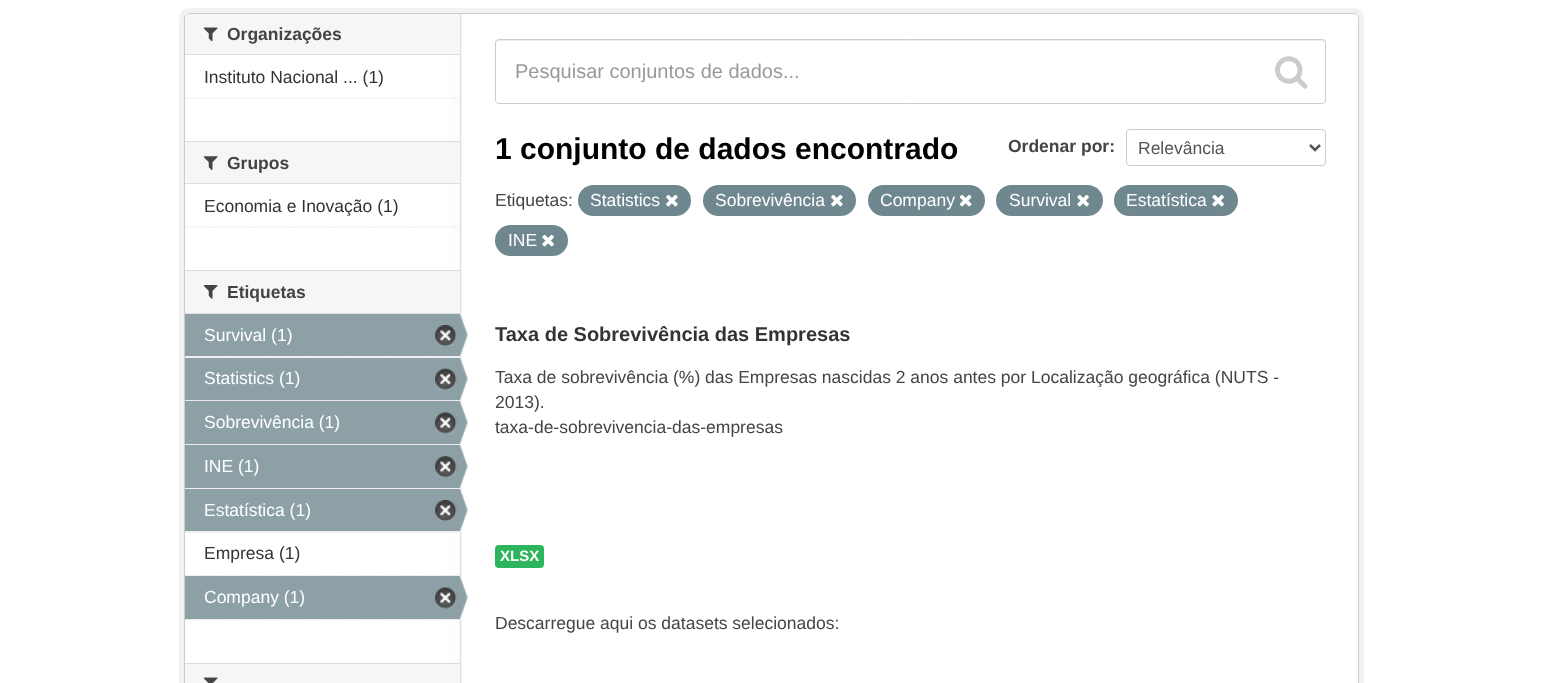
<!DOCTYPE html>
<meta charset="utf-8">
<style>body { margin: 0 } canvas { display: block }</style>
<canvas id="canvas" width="1542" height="683"></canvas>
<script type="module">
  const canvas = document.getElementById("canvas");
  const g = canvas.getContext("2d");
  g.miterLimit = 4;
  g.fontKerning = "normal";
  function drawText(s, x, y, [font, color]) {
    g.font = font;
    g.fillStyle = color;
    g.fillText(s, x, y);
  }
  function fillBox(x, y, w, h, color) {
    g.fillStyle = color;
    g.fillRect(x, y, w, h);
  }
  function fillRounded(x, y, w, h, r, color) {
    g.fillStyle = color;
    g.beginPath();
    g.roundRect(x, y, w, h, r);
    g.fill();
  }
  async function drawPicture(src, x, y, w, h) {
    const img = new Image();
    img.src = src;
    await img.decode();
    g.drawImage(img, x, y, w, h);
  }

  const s1 = ["bold 17.5px Liberation Sans", "#444444"];
  const s2 = ["17.5px Liberation Sans", "#333333"];
  const s3 = ["17.5px Liberation Sans", "#FFFFFF"];
  const s4 = ["20px Liberation Sans", "#999999"];
  const s5 = ["bold 30px Liberation Sans", "#000000"];
  const s6 = ["17.5px Liberation Sans", "#555555"];
  const s7 = ["17.5px Liberation Sans", "#444444"];
  const s8 = ["bold 20px Liberation Sans", "#333333"];
  const s9 = ["bold 15px Liberation Sans", "#FFFFFF"];

  fillBox(0, 0, 1542, 683, "#FFFFFF");
  g.beginPath();
  g.roundRect(181.5, 10.5, 1180, 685, 7.5);
  g.strokeStyle = "#F2F2F2";
  g.lineWidth = 5;
  g.stroke();
  fillRounded(184, 13, 1175, 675, 5, "#FFFFFF");
  await drawPicture("pic1.png", 186, 12, 276, 671);
  g.beginPath();
  g.roundRect(184.5, 13.5, 1174, 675, 4.5);
  g.strokeStyle = "#CCCCCC";
  g.lineWidth = 1;
  g.stroke();
  g.fillStyle = "#F6F6F6";
  g.beginPath();
  g.roundRect(185, 14, 275, 41, [4, 0, 0, 0]);
  g.fill();
  fillBox(185, 54, 275, 1, "#DDDDDD");
  await drawPicture("pic2.png", 203, 27, 15, 15);
  drawText("Organizações", 227, 40, s1);
  drawText("Instituto Nacional ... (1)", 204, 83, s2);
  g.beginPath();
  g.moveTo(185, 98);
  g.lineTo(460, 98);
  g.strokeStyle = "#DDDDDD";
  g.lineWidth = 1.2;
  g.setLineDash([1.25, 1.25]);
  g.stroke();
  fillBox(185, 142, 275, 41, "#F6F6F6");
  fillBox(185, 141, 275, 1, "#DDDDDD");
  fillBox(185, 183, 275, 1, "#DDDDDD");
  await drawPicture("pic3.png", 203, 156, 15, 14);
  drawText("Grupos", 227, 169, s1);
  drawText("Economia e Inovação (1)", 204, 212, s2);
  g.beginPath();
  g.moveTo(185, 227);
  g.lineTo(460, 227);
  g.stroke();
  fillBox(185, 271, 275, 42, "#F6F6F6");
  fillBox(185, 270, 275, 1, "#DDDDDD");
  fillBox(185, 313, 275, 1, "#DDDDDD");
  await drawPicture("pic4.png", 203, 285, 15, 14);
  drawText("Etiquetas", 227, 298, s1);
  fillBox(185, 356, 275, 2, "#F6F6F6");
  g.beginPath();
  g.moveTo(185, 357);
  g.lineTo(460, 357);
  g.stroke();
  fillBox(185, 314, 275, 42, "#8CA0A6");
  drawText("Survival (1)", 204, 341, s3);
  await drawPicture("pic5.png", 435, 325, 22, 22);
  await drawPicture("pic6.png", 460, 314, 8, 42);
  fillBox(186, 400, 274, 1, "#F6F6F6");
  g.beginPath();
  g.moveTo(185, 400.5);
  g.lineTo(460, 400.5);
  g.stroke();
  fillBox(185, 358, 275, 42, "#8CA0A6");
  drawText("Statistics (1)", 204, 384, s3);
  await drawPicture("pic7.png", 435, 368, 22, 22);
  await drawPicture("pic8.png", 460, 357, 8, 43);
  fillBox(186, 444, 274, 1, "#F6F6F6");
  g.beginPath();
  g.moveTo(185, 444.5);
  g.lineTo(460, 444.5);
  g.stroke();
  fillBox(185, 401, 275, 43, "#8CA0A6");
  drawText("Sobrevivência (1)", 204, 428, s3);
  await drawPicture("pic9.png", 435, 412, 22, 22);
  await drawPicture("pic10.png", 460, 401, 8, 43);
  fillBox(185, 488, 275, 1, "#F6F6F6");
  g.beginPath();
  g.moveTo(185, 488);
  g.lineTo(460, 488);
  g.stroke();
  fillBox(185, 445, 275, 43, "#8CA0A6");
  drawText("INE (1)", 204, 472, s3);
  await drawPicture("pic11.png", 435, 456, 22, 22);
  await drawPicture("pic12.png", 460, 445, 8, 43);
  fillBox(185, 531, 275, 2, "#F6F6F6");
  g.beginPath();
  g.moveTo(185, 532);
  g.lineTo(460, 532);
  g.stroke();
  fillBox(185, 489, 275, 42, "#8CA0A6");
  drawText("Estatística (1)", 204, 516, s3);
  await drawPicture("pic5.png", 435, 500, 22, 22);
  await drawPicture("pic6.png", 460, 489, 8, 42);
  g.beginPath();
  g.moveTo(185, 575.5);
  g.lineTo(460, 575.5);
  g.stroke();
  drawText("Empresa (1)", 204, 559, s2);
  g.beginPath();
  g.moveTo(185, 619.5);
  g.lineTo(460, 619.5);
  g.stroke();
  fillBox(185, 576, 275, 43, "#8CA0A6");
  drawText("Company (1)", 204, 603, s3);
  await drawPicture("pic13.png", 435, 587, 22, 22);
  await drawPicture("pic14.png", 460, 576, 8, 43);
  fillBox(185, 664, 275, 19, "#F6F6F6");
  fillBox(185, 663, 275, 1, "#DDDDDD");
  await drawPicture("pic15.png", 203, 677, 15, 6);
  g.fillStyle = "#ECECEC";
  g.beginPath();
  g.moveTo(499, 41);
  g.lineTo(1322, 41);
  g.bezierCurveTo(1324, 41, 1325, 42, 1325, 44);
  g.lineTo(1325, 42);
  g.bezierCurveTo(1325, 41, 1324, 40, 1322, 40);
  g.lineTo(498, 40);
  g.bezierCurveTo(497, 40, 496, 41, 496, 42);
  g.lineTo(496, 44);
  g.bezierCurveTo(496, 42, 497, 41, 499, 41);
  g.closePath();
  g.fill();
  g.beginPath();
  g.roundRect(495.5, 39.5, 830, 64, 3.5);
  g.strokeStyle = "#CCCCCC";
  g.lineWidth = 1;
  g.setLineDash([]);
  g.stroke();
  drawText("Pesquisar conjuntos de dados...", 515, 78, s4);
  await drawPicture("pic16.png", 1275, 56, 33, 33);
  drawText("1 conjunto de dados encontrado", 495, 159, s5);
  drawText("Ordenar por:", 1008, 152, s1);
  g.beginPath();
  g.roundRect(1126.5, 129.5, 199, 36, 3.5);
  g.stroke();
  g.beginPath();
  g.moveTo(1310, 145);
  g.lineTo(1315, 150);
  g.lineTo(1320, 145);
  g.strokeStyle = "#555555";
  g.lineWidth = 2.5;
  g.stroke();
  drawText("Relevância", 1138, 154, s6);
  drawText("Etiquetas:", 495, 206, s7);
  fillRounded(578, 185, 113, 31, 15.5, "#6F8890");
  drawText("Statistics", 590, 206, s3);
  await drawPicture("pic17.png", 666, 194, 12, 13);
  fillRounded(703, 185, 153, 31, 15.5, "#6F8890");
  drawText("Sobrevivência", 715, 206, s3);
  await drawPicture("pic17.png", 831, 194, 12, 13);
  fillRounded(868, 185, 117, 31, 15.5, "#6F8890");
  drawText("Company", 880, 206, s3);
  await drawPicture("pic18.png", 959, 194, 13, 13);
  fillRounded(996, 185, 107, 31, 15.5, "#6F8890");
  drawText("Survival", 1009, 206, s3);
  await drawPicture("pic19.png", 1077, 194, 12, 13);
  fillRounded(1114, 185, 124, 31, 15.5, "#6F8890");
  drawText("Estatística", 1126, 206, s3);
  await drawPicture("pic19.png", 1212, 194, 12, 13);
  fillRounded(495, 225, 73, 31, 15.5, "#6F8890");
  drawText("INE", 508, 246, s3);
  await drawPicture("pic19.png", 542, 234, 12, 13);
  drawText("Taxa de Sobrevivência das Empresas", 495, 341, s8);
  drawText("Taxa de sobrevivência (%) das Empresas nascidas 2 anos antes por Localização geográfica (NUTS -", 495, 383, s7);
  drawText("2013).", 495, 408, s7);
  drawText("taxa-de-sobrevivencia-das-empresas", 495, 433, s7);
  fillRounded(495, 545, 49, 23, 4, "#2DB55D");
  drawText("XLSX", 500, 561, s9);
  drawText("Descarregue aqui os datasets selecionados:", 495, 629, s7);
</script>
